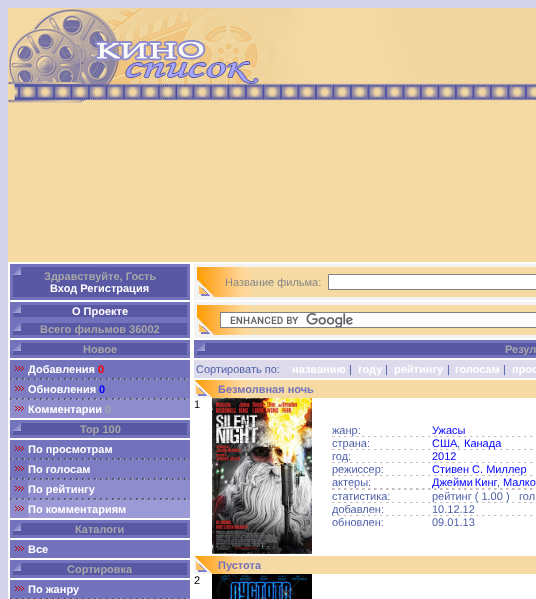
<!DOCTYPE html>
<meta charset="utf-8">
<style>body { margin: 0 } canvas { display: block }</style>
<canvas id="canvas" width="536" height="599"></canvas>
<script type="module">
  const canvas = document.getElementById("canvas");
  const g = canvas.getContext("2d");
  g.miterLimit = 4;
  g.fontKerning = "normal";
  function drawText(s, x, y, [font, color]) {
    g.font = font;
    g.fillStyle = color;
    g.fillText(s, x, y);
  }
  function fillBox(x, y, w, h, color) {
    g.fillStyle = color;
    g.fillRect(x, y, w, h);
  }
  async function drawPicture(src, x, y, w, h) {
    const img = new Image();
    img.src = src;
    await img.decode();
    g.drawImage(img, x, y, w, h);
  }

  const s1 = ["bold 11px Liberation Sans", "#A7A7A7"];
  const s2 = ["bold 11px Liberation Sans", "#FFFFFF"];
  const s3 = ["bold 11px Liberation Sans", "#FF0000"];
  const s4 = ["bold 11px Liberation Sans", "#0000FF"];
  const s5 = ["11px Liberation Sans", "#878787"];
  const s6 = ["11px Liberation Sans", "#4C5EA8"];
  const s7 = ["bold 11px Liberation Sans", "#7373BD"];
  const s8 = ["11px Liberation Sans", "#000000"];
  const s9 = ["11px Liberation Sans", "#0000FF"];

  fillBox(0, 0, 536, 599, "#D6D4EA");
  fillBox(8, 103, 528, 159, "#F5DAA3");
  await drawPicture("pic1.png", 8, 8, 528, 95);
  fillBox(8, 262, 528, 337, "#FFFFFF");
  fillBox(10, 264, 180, 36, "#7373BD");
  fillBox(13, 267, 174, 30, "#5858A5");
  await drawPicture("pic2.png", 13, 267, 8, 9);
  drawText("Здравствуйте, Гость", 44, 280, s1);
  drawText("Вход Регистрация", 50, 292, s2);
  fillBox(10, 302, 180, 36, "#7373BD");
  fillBox(13, 305, 174, 12, "#5858A5");
  await drawPicture("pic2.png", 13, 305, 8, 9);
  drawText("О Проекте", 72, 315, s2);
  fillBox(13, 323, 174, 12, "#5858A5");
  await drawPicture("pic2.png", 13, 323, 8, 9);
  drawText("Всего фильмов 36002", 40, 333, s1);
  fillBox(10, 340, 180, 18, "#7373BD");
  fillBox(13, 343, 174, 12, "#5858A5");
  await drawPicture("pic2.png", 13, 343, 8, 9);
  drawText("Новое", 83, 353, s1);
  fillBox(10, 360, 180, 18, "#7373BD");
  await drawPicture("pic3.png", 15, 366, 9, 5);
  drawText("Добавления", 28, 373, s2);
  drawText("0", 98, 373, s3);
  fillBox(10, 378, 180, 2, "#7E7DC4");
  await drawPicture("pic4.png", 10, 378, 177, 2);
  fillBox(10, 380, 180, 18, "#7E7DC4");
  await drawPicture("pic5.png", 15, 386, 9, 5);
  drawText("Обновления", 28, 393, s2);
  drawText("0", 99, 393, s4);
  fillBox(10, 398, 180, 2, "#8E8CCD");
  await drawPicture("pic6.png", 10, 398, 177, 2);
  fillBox(10, 400, 180, 18, "#8E8CCD");
  await drawPicture("pic7.png", 15, 406, 9, 5);
  drawText("Комментарии", 28, 413, s2);
  drawText("0", 105, 413, s1);
  fillBox(10, 420, 180, 18, "#7373BD");
  fillBox(13, 423, 174, 12, "#5858A5");
  await drawPicture("pic2.png", 13, 423, 8, 9);
  drawText("Top 100", 80, 433, s1);
  fillBox(10, 440, 180, 20, "#7373BD");
  await drawPicture("pic3.png", 15, 446, 9, 5);
  drawText("По просмотрам", 28, 453, s2);
  await drawPicture("pic8.png", 10, 458, 177, 2);
  fillBox(10, 460, 18, 18, "#7373BD");
  await drawPicture("pic3.png", 15, 466, 9, 5);
  fillBox(28, 460, 162, 18, "#7E7DC4");
  drawText("По голосам", 28, 473, s2);
  fillBox(10, 478, 180, 2, "#7E7DC4");
  await drawPicture("pic4.png", 10, 478, 177, 2);
  fillBox(10, 480, 18, 18, "#7E7DC4");
  await drawPicture("pic5.png", 15, 486, 9, 5);
  fillBox(28, 480, 162, 18, "#8E8CCD");
  drawText("По рейтингу", 28, 493, s2);
  fillBox(10, 498, 180, 2, "#8E8CCD");
  await drawPicture("pic6.png", 10, 498, 177, 2);
  fillBox(10, 500, 18, 18, "#8E8CCD");
  await drawPicture("pic7.png", 15, 506, 9, 5);
  fillBox(28, 500, 162, 18, "#9C99D7");
  drawText("По комментариям", 28, 513, s2);
  fillBox(10, 520, 180, 18, "#7373BD");
  fillBox(13, 523, 174, 12, "#5858A5");
  await drawPicture("pic2.png", 13, 523, 8, 9);
  drawText("Каталоги", 75, 533, s1);
  fillBox(10, 540, 180, 18, "#7373BD");
  await drawPicture("pic3.png", 15, 546, 9, 5);
  drawText("Все", 28, 553, s2);
  fillBox(10, 560, 180, 18, "#7373BD");
  fillBox(13, 563, 174, 12, "#5858A5");
  await drawPicture("pic2.png", 13, 563, 8, 9);
  drawText("Сортировка", 67, 573, s1);
  fillBox(10, 580, 180, 18, "#7373BD");
  await drawPicture("pic3.png", 15, 586, 9, 5);
  drawText("По жанру", 28, 593, s2);
  fillBox(10, 598, 180, 1, "#7E7DC4");
  await drawPicture("pic9.png", 10, 598, 177, 1);
  fillBox(194, 264, 342, 36, "#F3F3F3");
  fillBox(250, 267, 286, 30, "#F5DAA3");
  await drawPicture("pic10.png", 197, 267, 53, 30);
  drawText("Название фильма:", 225, 286, s5);
  g.fillStyle = "#FFFFFF";
  g.beginPath();
  g.rect(328.5, 274.5, 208, 15);
  g.fill();
  g.strokeStyle = "#808080";
  g.stroke();
  fillBox(194, 302, 342, 36, "#F3F3F3");
  fillBox(250, 305, 286, 30, "#F5DAA3");
  await drawPicture("pic10.png", 197, 305, 53, 30);
  fillBox(221, 313, 315, 14, "#FFFFFF");
  await drawPicture("pic11.png", 230, 313, 123, 14);
  g.strokeRect(220.5, 312.5, 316, 15);
  fillBox(194, 340, 342, 18, "#7373BD");
  fillBox(197, 343, 339, 12, "#5858A5");
  await drawPicture("pic2.png", 197, 343, 8, 9);
  drawText("Резул", 505, 353, s1);
  fillBox(194, 360, 342, 18, "#DDDBEB");
  drawText("Сортировать по:", 196, 373, s6);
  drawText("названию", 292, 373, s2);
  drawText("|", 349, 373, s6);
  drawText("году", 358, 373, s2);
  drawText("|", 385, 373, s6);
  drawText("рейтингу", 394, 373, s2);
  drawText("|", 447, 373, s6);
  drawText("голосам", 455, 373, s2);
  drawText("|", 503, 373, s6);
  drawText("прос", 512, 373, s2);
  fillBox(247, 380, 289, 18, "#F5DAA3");
  await drawPicture("pic12.png", 194, 380, 53, 18);
  drawText("Безмолвная ночь", 218, 393, s7);
  drawText("1", 194, 408, s8);
  await drawPicture("pic13.png", 212, 398, 100, 156);
  await drawPicture("pic14.png", 332, 436, 201, 1);
  drawText("жанр:", 332, 434, s6);
  drawText("Ужасы", 432, 434, s9);
  await drawPicture("pic14.png", 332, 449, 201, 1);
  drawText("страна:", 332, 447, s6);
  drawText("США", 432, 447, s9);
  drawText(",", 457, 447, s6);
  drawText("Канада", 464, 447, s9);
  await drawPicture("pic14.png", 332, 462, 201, 1);
  drawText("год:", 332, 460, s6);
  drawText("2012", 432, 460, s9);
  await drawPicture("pic14.png", 332, 475, 201, 1);
  drawText("режиссер:", 332, 473, s6);
  drawText("Стивен С. Миллер", 432, 473, s9);
  await drawPicture("pic14.png", 332, 488, 201, 1);
  drawText("актеры:", 332, 486, s6);
  g.wordSpacing = "-1px";
  drawText("Джейми Кинг", 432, 486, s9);
  g.wordSpacing = "0px";
  drawText(",", 497, 486, s6);
  drawText("Малко", 503, 486, s9);
  await drawPicture("pic14.png", 332, 489, 201, 1);
  drawText("статистика:", 332, 500, s6);
  await drawPicture("pic14.png", 332, 502, 201, 1);
  drawText("рейтинг ( 1.00 )", 432, 500, s6);
  drawText("гол", 519, 500, s6);
  await drawPicture("pic14.png", 332, 515, 201, 1);
  drawText("добавлен:", 332, 513, s6);
  drawText("10.12.12", 432, 513, s6);
  drawText("обновлен:", 332, 526, s6);
  drawText("09.01.13", 432, 526, s6);
  fillBox(247, 556, 289, 18, "#F5DAA3");
  await drawPicture("pic12.png", 194, 556, 53, 18);
  drawText("Пустота", 218, 569, s7);
  drawText("2", 194, 584, s8);
  await drawPicture("pic15.png", 212, 574, 100, 25);
</script>
